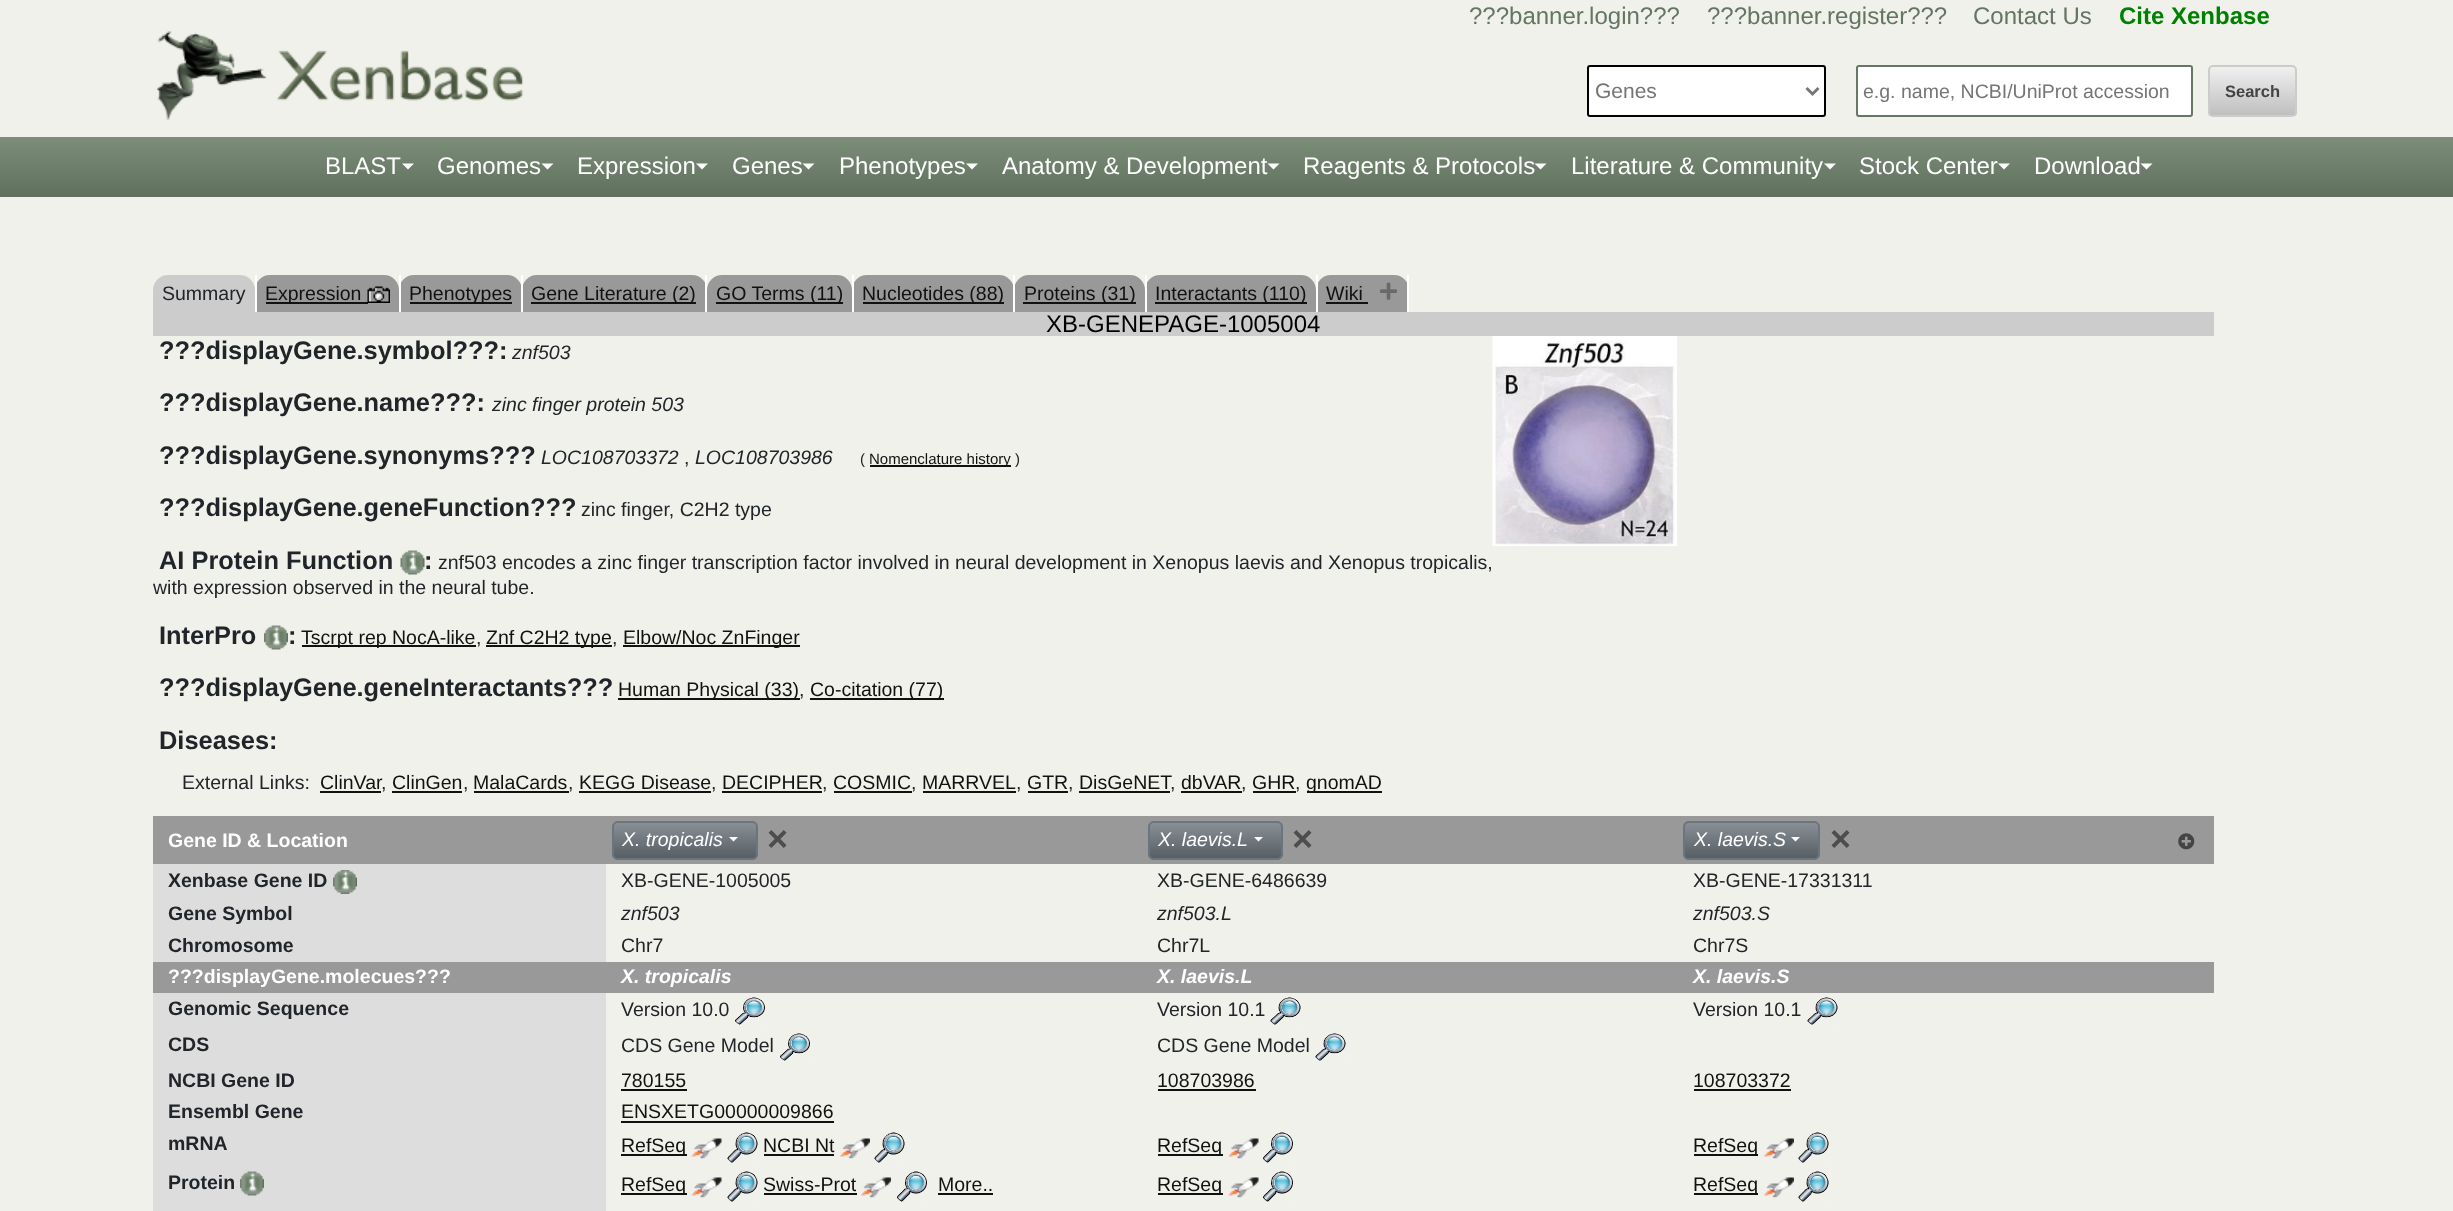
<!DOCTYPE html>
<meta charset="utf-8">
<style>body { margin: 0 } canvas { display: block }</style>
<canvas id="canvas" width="2453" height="1211"></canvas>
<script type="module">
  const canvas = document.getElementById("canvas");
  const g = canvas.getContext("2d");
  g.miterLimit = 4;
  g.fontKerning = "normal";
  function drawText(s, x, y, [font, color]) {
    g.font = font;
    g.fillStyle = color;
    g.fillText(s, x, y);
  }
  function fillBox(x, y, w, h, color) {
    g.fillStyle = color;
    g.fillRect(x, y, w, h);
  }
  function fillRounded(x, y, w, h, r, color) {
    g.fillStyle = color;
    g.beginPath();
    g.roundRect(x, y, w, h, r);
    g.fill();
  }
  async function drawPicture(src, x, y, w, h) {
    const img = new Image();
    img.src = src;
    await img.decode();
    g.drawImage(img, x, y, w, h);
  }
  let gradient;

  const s1 = ["24px Liberation Sans", "#647562"];
  const s2 = ["bold 24px Liberation Sans", "#008000"];
  const s3 = ["21px Liberation Sans", "#757575"];
  const s4 = ["19.5px Liberation Sans", "#757575"];
  const s5 = ["bold 16.5px Liberation Sans", "#444444"];
  const s6 = ["24px Liberation Sans", "#FFFFFF"];
  const s7 = ["19.5px Liberation Sans", "#212529"];
  const s8 = ["19.5px Liberation Sans", "#111111"];
  const s9 = ["24px Liberation Sans", "#000000"];
  const s10 = ["bold 25.4px Liberation Sans", "#212529"];
  const s11 = ["italic 19.5px Liberation Sans", "#212529"];
  const s12 = ["15px Liberation Sans", "#212529"];
  const s13 = ["15px Liberation Sans", "#111111"];
  const s14 = ["bold 19.5px Liberation Sans", "#FFFFFF"];
  const s15 = ["italic 19.5px Liberation Sans", "#FFFFFF"];
  const s16 = ["bold 36px Liberation Sans", "#4D4D4D"];
  const s17 = ["bold 19.5px Liberation Sans", "#212529"];
  const s18 = ["italic bold 19.5px Liberation Sans", "#FFFFFF"];

  fillBox(0, 0, 2453, 1211, "#F0F1EA");
  drawText("???banner.login???", 1469, 24, s1);
  drawText("???banner.register???", 1707, 24, s1);
  drawText("Contact Us", 1973, 24, s1);
  drawText("Cite Xenbase", 2119, 24, s2);
  await drawPicture("pic1.png", 156, 31, 368, 90);
  g.fillStyle = "#FFFFFF";
  g.beginPath();
  g.roundRect(1588, 66, 237, 50, 2);
  g.fill();
  g.strokeStyle = "#000000";
  g.lineWidth = 2;
  g.stroke();
  g.beginPath();
  g.moveTo(1806.5, 88);
  g.lineTo(1812.5, 94);
  g.lineTo(1818.5, 88);
  g.strokeStyle = "#777777";
  g.lineWidth = 3;
  g.stroke();
  drawText("Genes", 1595, 98, s3);
  g.fillStyle = "#FFFFFF";
  g.beginPath();
  g.roundRect(1857, 66, 335, 50, 2);
  g.fill();
  g.strokeStyle = "#667764";
  g.lineWidth = 2;
  g.stroke();
  drawText("e.g. name, NCBI/UniProt accession", 1863, 98, s4);
  g.save();
  g.beginPath();
  g.roundRect(2208, 65, 89, 52, 5);
  g.clip();
  gradient = g.createLinearGradient(2252, 66, 2252, 116);
  gradient.addColorStop(0, "#F1F1F1");
  gradient.addColorStop(1, "#BEBEBE");
  g.fillStyle = gradient;
  g.fillRect(2208, 66, 89, 50);
  g.restore();
  g.beginPath();
  g.roundRect(2209, 66, 87, 50, 4);
  g.strokeStyle = "#CCCCCC";
  g.stroke();
  drawText("Search", 2225, 97, s5);
  gradient = g.createLinearGradient(1227, 136, 1227, 197);
  gradient.addColorStop(0, "#7D8E7B");
  gradient.addColorStop(1, "#5F705D");
  g.fillStyle = gradient;
  g.fillRect(0, 137, 2453, 60);
  drawText("BLAST", 325, 174, s6);
  g.beginPath();
  g.moveTo(402, 163.5);
  g.lineTo(414, 163.5);
  g.lineTo(408, 169.5);
  g.closePath();
  g.fill();
  drawText("Genomes", 437, 174, s6);
  g.beginPath();
  g.moveTo(541.5, 163.5);
  g.lineTo(553.5, 163.5);
  g.lineTo(547.5, 169.5);
  g.closePath();
  g.fill();
  drawText("Expression", 577, 174, s6);
  g.beginPath();
  g.moveTo(696, 163.5);
  g.lineTo(708, 163.5);
  g.lineTo(702, 169.5);
  g.closePath();
  g.fill();
  drawText("Genes", 732, 174, s6);
  g.beginPath();
  g.moveTo(802.5, 163.5);
  g.lineTo(814.5, 163.5);
  g.lineTo(808.5, 169.5);
  g.closePath();
  g.fill();
  drawText("Phenotypes", 839, 174, s6);
  g.beginPath();
  g.moveTo(966, 163.5);
  g.lineTo(978, 163.5);
  g.lineTo(972, 169.5);
  g.closePath();
  g.fill();
  drawText("Anatomy & Development", 1002, 174, s6);
  g.beginPath();
  g.moveTo(1267.5, 163.5);
  g.lineTo(1279.5, 163.5);
  g.lineTo(1273.5, 169.5);
  g.closePath();
  g.fill();
  drawText("Reagents & Protocols", 1303, 174, s6);
  g.beginPath();
  g.moveTo(1534.5, 163.5);
  g.lineTo(1546.5, 163.5);
  g.lineTo(1540.5, 169.5);
  g.closePath();
  g.fill();
  drawText("Literature & Community", 1571, 174, s6);
  g.beginPath();
  g.moveTo(1824, 163.5);
  g.lineTo(1836, 163.5);
  g.lineTo(1830, 169.5);
  g.closePath();
  g.fill();
  drawText("Stock Center", 1859, 174, s6);
  g.beginPath();
  g.moveTo(1998, 163.5);
  g.lineTo(2010, 163.5);
  g.lineTo(2004, 169.5);
  g.closePath();
  g.fill();
  drawText("Download", 2034, 174, s6);
  g.beginPath();
  g.moveTo(2140.5, 163.5);
  g.lineTo(2152.5, 163.5);
  g.lineTo(2146.5, 169.5);
  g.closePath();
  g.fill();
  g.fillStyle = "#CCCCCC";
  g.beginPath();
  g.roundRect(153, 275, 102, 37, [15, 15, 0, 0]);
  g.fill();
  g.fillStyle = "#999999";
  g.beginPath();
  g.roundRect(255, 275, 144, 37, [15, 15, 0, 0]);
  g.fill();
  fillBox(255, 275, 2, 39, "#FFFFFF");
  drawText("Summary", 162, 300, s7);
  g.fillStyle = "#999999";
  g.beginPath();
  g.roundRect(399, 275, 123, 37, [15, 15, 0, 0]);
  g.fill();
  fillBox(399, 275, 2, 39, "#FFFFFF");
  fillBox(266, 302, 102, 2, "#111111");
  drawText("Expression", 265, 300, s8);
  await drawPicture("pic2.png", 367, 286, 23, 17);
  g.fillStyle = "#999999";
  g.beginPath();
  g.roundRect(522, 275, 185, 37, [15, 15, 0, 0]);
  g.fill();
  fillBox(521, 275, 2, 39, "#FFFFFF");
  fillBox(410, 302, 102, 2, "#111111");
  drawText("Phenotypes", 409, 300, s8);
  fillBox(705, 275, 2, 39, "#FFFFFF");
  fillBox(531, 302, 165, 2, "#111111");
  drawText("Gene Literature (2)", 531, 300, s8);
  g.fillStyle = "#999999";
  g.beginPath();
  g.roundRect(707, 275, 145, 37, [15, 15, 0, 0]);
  g.fill();
  g.beginPath();
  g.roundRect(852, 275, 162, 37, [15, 15, 0, 0]);
  g.fill();
  fillBox(852, 275, 2, 39, "#FFFFFF");
  fillBox(716, 302, 127, 2, "#111111");
  drawText("GO Terms (11)", 716, 300, s8);
  g.fillStyle = "#999999";
  g.beginPath();
  g.roundRect(1014, 275, 131, 37, [15, 15, 0, 0]);
  g.fill();
  fillBox(1013, 275, 2, 39, "#FFFFFF");
  fillBox(863, 302, 141, 2, "#111111");
  drawText("Nucleotides (88)", 862, 300, s8);
  g.fillStyle = "#999999";
  g.beginPath();
  g.roundRect(1145, 275, 171, 37, [15, 15, 0, 0]);
  g.fill();
  fillBox(1145, 275, 2, 39, "#FFFFFF");
  fillBox(1023, 302, 113, 2, "#111111");
  drawText("Proteins (31)", 1024, 300, s8);
  g.fillStyle = "#999999";
  g.beginPath();
  g.roundRect(1316, 275, 93, 37, [15, 15, 0, 0]);
  g.fill();
  fillBox(1316, 275, 2, 39, "#FFFFFF");
  fillBox(1155, 302, 152, 2, "#111111");
  drawText("Interactants (110)", 1155, 300, s8);
  fillBox(1407, 275, 2, 39, "#FFFFFF");
  drawText("Wiki", 1326, 300, s8);
  fillBox(1326, 302, 42, 2, "#111111");
  await drawPicture("pic3.png", 1380, 282, 17, 18);
  fillBox(153, 312, 2061, 24, "#CCCCCC");
  drawText("XB-GENEPAGE-1005004", 1046, 332, s9);
  drawText("???displayGene.symbol???:", 159, 359, s10);
  drawText("znf503", 512, 359, s11);
  drawText("???displayGene.name???:", 159, 411, s10);
  drawText("zinc finger protein 503", 492, 411, s11);
  drawText("???displayGene.synonyms???", 159, 464, s10);
  drawText("LOC108703372", 541, 464, s11);
  drawText(",", 684, 464, s7);
  drawText("LOC108703986", 695, 464, s11);
  drawText("(", 860, 464, s12);
  fillBox(870, 465, 141, 2, "#111111");
  drawText("Nomenclature history", 869, 464, s13);
  drawText(")", 1015, 464, s12);
  drawText("???displayGene.geneFunction???", 159, 516, s10);
  drawText("zinc finger, C2H2 type", 581, 516, s7);
  drawText("AI Protein Function", 159, 569, s10);
  await drawPicture("pic4.png", 400, 550, 25, 25);
  drawText(":", 424, 569, s10);
  drawText("znf503 encodes a zinc finger transcription factor involved in neural development in Xenopus laevis and Xenopus tropicalis,", 438, 569, s7);
  drawText("with expression observed in the neural tube.", 153, 594, s7);
  drawText("InterPro", 159, 644, s10);
  await drawPicture("pic5.png", 264, 625, 24, 25);
  drawText(":", 288, 644, s10);
  fillBox(302, 645, 174, 2, "#111111");
  drawText("Tscrpt rep NocA-like", 301, 644, s8);
  drawText(",", 476, 644, s7);
  fillBox(486, 645, 126, 2, "#111111");
  drawText("Znf C2H2 type", 486, 644, s8);
  drawText(",", 612, 644, s7);
  fillBox(623, 645, 177, 2, "#111111");
  drawText("Elbow/Noc ZnFinger", 623, 644, s8);
  drawText("???displayGene.geneInteractants???", 159, 696, s10);
  fillBox(618, 698, 182, 2, "#111111");
  drawText("Human Physical (33)", 618, 696, s8);
  drawText(",", 799, 696, s7);
  fillBox(810, 698, 134, 2, "#111111");
  drawText("Co-citation (77)", 810, 696, s8);
  drawText("Diseases:", 159, 749, s10);
  drawText("External Links:", 182, 789, s7);
  drawText("ClinVar", 320, 789, s8);
  fillBox(320, 791, 61, 2, "#111111");
  drawText(",", 381, 789, s7);
  drawText("ClinGen", 392, 789, s8);
  fillBox(392, 791, 70, 2, "#111111");
  drawText(",", 463, 789, s7);
  drawText("MalaCards", 473, 789, s8);
  fillBox(474, 791, 95, 2, "#111111");
  drawText(",", 568, 789, s7);
  drawText("KEGG Disease", 579, 789, s8);
  fillBox(579, 791, 132, 2, "#111111");
  drawText(",", 711, 789, s7);
  drawText("DECIPHER", 722, 789, s8);
  fillBox(722, 791, 100, 2, "#111111");
  drawText(",", 822, 789, s7);
  drawText("COSMIC", 833, 789, s8);
  fillBox(834, 791, 78, 2, "#111111");
  drawText(",", 911, 789, s7);
  drawText("MARRVEL", 922, 789, s8);
  fillBox(923, 791, 93, 2, "#111111");
  drawText(",", 1016, 789, s7);
  drawText("GTR", 1027, 789, s8);
  fillBox(1028, 791, 40, 2, "#111111");
  drawText(",", 1068, 789, s7);
  drawText("DisGeNET", 1079, 789, s8);
  fillBox(1079, 791, 91, 2, "#111111");
  drawText(",", 1170, 789, s7);
  drawText("dbVAR", 1181, 789, s8);
  fillBox(1181, 791, 61, 2, "#111111");
  drawText(",", 1241, 789, s7);
  drawText("GHR", 1252, 789, s8);
  fillBox(1253, 791, 43, 2, "#111111");
  drawText(",", 1295, 789, s7);
  fillBox(1307, 791, 75, 2, "#111111");
  drawText("gnomAD", 1306, 789, s8);
  await drawPicture("pic6.png", 1492, 336, 185, 210);
  fillBox(153, 816, 2061, 48, "#999999");
  drawText("Gene ID & Location", 168, 847, s14);
  fillRounded(612, 821, 146, 39, 6, "#6C757D");
  g.save();
  g.beginPath();
  g.roundRect(612, 821, 146, 39, 6);
  g.clip();
  gradient = g.createLinearGradient(685, 822, 685, 858);
  gradient.addColorStop(0, "rgba(255, 255, 255, 0.2)");
  gradient.addColorStop(1, "rgba(0, 0, 0, 0.2)");
  g.fillStyle = gradient;
  g.fillRect(612, 822, 146, 36);
  g.restore();
  g.beginPath();
  g.roundRect(613, 822, 144, 37, 5);
  g.strokeStyle = "#6C757D";
  g.stroke();
  drawText("X. tropicalis", 622, 846, s15);
  g.fillStyle = "#FCFDFE";
  g.beginPath();
  g.moveTo(729, 837);
  g.lineTo(738, 837);
  g.lineTo(733.5, 841.5);
  g.closePath();
  g.fill();
  drawText("×", 767, 851, s16);
  fillRounded(1148, 821, 135, 39, 6, "#6C757D");
  g.save();
  g.beginPath();
  g.roundRect(1148, 821, 135, 39, 6);
  g.clip();
  gradient = g.createLinearGradient(1215, 822, 1215, 858);
  gradient.addColorStop(0, "rgba(255, 255, 255, 0.2)");
  gradient.addColorStop(1, "rgba(0, 0, 0, 0.2)");
  g.fillStyle = gradient;
  g.fillRect(1148, 822, 135, 36);
  g.restore();
  g.beginPath();
  g.roundRect(1149, 822, 133, 37, 5);
  g.stroke();
  drawText("X. laevis.L", 1158, 846, s15);
  g.fillStyle = "#FCFDFE";
  g.beginPath();
  g.moveTo(1254, 837);
  g.lineTo(1263, 837);
  g.lineTo(1258.5, 841.5);
  g.closePath();
  g.fill();
  drawText("×", 1292, 851, s16);
  fillRounded(1683, 821, 137, 39, 6, "#6C757D");
  g.save();
  g.beginPath();
  g.roundRect(1683, 821, 137, 39, 6);
  g.clip();
  gradient = g.createLinearGradient(1751, 822, 1751, 858);
  gradient.addColorStop(0, "rgba(255, 255, 255, 0.2)");
  gradient.addColorStop(1, "rgba(0, 0, 0, 0.2)");
  g.fillStyle = gradient;
  g.fillRect(1683, 822, 137, 36);
  g.restore();
  g.beginPath();
  g.roundRect(1684, 822, 135, 37, 5);
  g.stroke();
  drawText("X. laevis.S", 1694, 846, s15);
  g.fillStyle = "#FCFDFE";
  g.beginPath();
  g.moveTo(1791, 837);
  g.lineTo(1800, 837);
  g.lineTo(1795.5, 841.5);
  g.closePath();
  g.fill();
  drawText("×", 1830, 851, s16);
  await drawPicture("pic7.png", 2178, 833, 17, 17);
  fillBox(153, 864, 453, 98, "#DDDDDD");
  drawText("Xenbase Gene ID", 168, 887, s17);
  await drawPicture("pic8.png", 333, 870, 24, 24);
  drawText("XB-GENE-1005005", 621, 887, s7);
  drawText("XB-GENE-6486639", 1157, 887, s7);
  drawText("XB-GENE-17331311", 1693, 887, s7);
  drawText("Gene Symbol", 168, 920, s17);
  drawText("znf503", 621, 920, s11);
  drawText("znf503.L", 1157, 920, s11);
  drawText("znf503.S", 1693, 920, s11);
  drawText("Chromosome", 168, 952, s17);
  drawText("Chr7", 621, 952, s7);
  drawText("Chr7L", 1157, 952, s7);
  drawText("Chr7S", 1693, 952, s7);
  fillBox(153, 962, 2061, 31, "#999999");
  drawText("???displayGene.molecues???", 168, 983, s14);
  drawText("X. tropicalis", 621, 983, s18);
  drawText("X. laevis.L", 1157, 983, s18);
  drawText("X. laevis.S", 1693, 983, s18);
  fillBox(153, 993, 453, 218, "#DDDDDD");
  drawText("Genomic Sequence", 168, 1015, s17);
  drawText("Version 10.0", 621, 1016, s7);
  await drawPicture("pic9.png", 735, 997, 30, 28);
  drawText("Version 10.1", 1157, 1016, s7);
  await drawPicture("pic10.png", 1270, 997, 31, 28);
  drawText("Version 10.1", 1693, 1016, s7);
  await drawPicture("pic10.png", 1807, 997, 31, 28);
  drawText("CDS", 168, 1051, s17);
  drawText("CDS Gene Model", 621, 1052, s7);
  await drawPicture("pic11.png", 780, 1033, 30, 28);
  drawText("CDS Gene Model", 1157, 1052, s7);
  await drawPicture("pic10.png", 1315, 1033, 31, 28);
  drawText("NCBI Gene ID", 168, 1087, s17);
  drawText("780155", 621, 1087, s8);
  fillBox(621, 1089, 66, 2, "#111111");
  drawText("108703986", 1157, 1087, s8);
  fillBox(1158, 1089, 98, 2, "#111111");
  drawText("108703372", 1693, 1087, s8);
  fillBox(1694, 1089, 97, 2, "#111111");
  drawText("Ensembl Gene", 168, 1118, s17);
  drawText("ENSXETG00000009866", 621, 1118, s8);
  fillBox(621, 1121, 213, 2, "#111111");
  drawText("mRNA", 168, 1150, s17);
  fillBox(621, 1154, 66, 2, "#111111");
  drawText("RefSeq", 621, 1152, s8);
  await drawPicture("pic12.png", 691, 1138, 31, 21);
  await drawPicture("pic13.png", 727, 1132, 31, 31);
  drawText("NCBI Nt", 763, 1152, s8);
  fillBox(764, 1154, 70, 2, "#111111");
  await drawPicture("pic14.png", 840, 1138, 30, 21);
  await drawPicture("pic13.png", 874, 1132, 31, 31);
  fillBox(1158, 1154, 65, 2, "#111111");
  drawText("RefSeq", 1157, 1152, s8);
  await drawPicture("pic15.png", 1228, 1138, 31, 21);
  await drawPicture("pic16.png", 1263, 1132, 30, 31);
  fillBox(1694, 1154, 64, 2, "#111111");
  drawText("RefSeq", 1693, 1152, s8);
  await drawPicture("pic14.png", 1764, 1138, 30, 21);
  await drawPicture("pic13.png", 1798, 1132, 31, 31);
  drawText("Protein", 168, 1189, s17);
  await drawPicture("pic17.png", 240, 1171, 24, 25);
  fillBox(621, 1193, 66, 2, "#111111");
  drawText("RefSeq", 621, 1191, s8);
  await drawPicture("pic12.png", 691, 1177, 31, 21);
  await drawPicture("pic13.png", 727, 1171, 31, 31);
  drawText("Swiss-Prot", 763, 1191, s8);
  fillBox(764, 1193, 93, 2, "#111111");
  await drawPicture("pic14.png", 861, 1177, 30, 21);
  await drawPicture("pic18.png", 897, 1171, 30, 31);
  drawText("More..", 938, 1191, s8);
  fillBox(938, 1193, 55, 2, "#111111");
  fillBox(1158, 1193, 65, 2, "#111111");
  drawText("RefSeq", 1157, 1191, s8);
  await drawPicture("pic15.png", 1228, 1177, 31, 21);
  await drawPicture("pic16.png", 1263, 1171, 30, 31);
  fillBox(1694, 1193, 64, 2, "#111111");
  drawText("RefSeq", 1693, 1191, s8);
  await drawPicture("pic14.png", 1764, 1177, 30, 21);
  await drawPicture("pic13.png", 1798, 1171, 31, 31);
</script>
